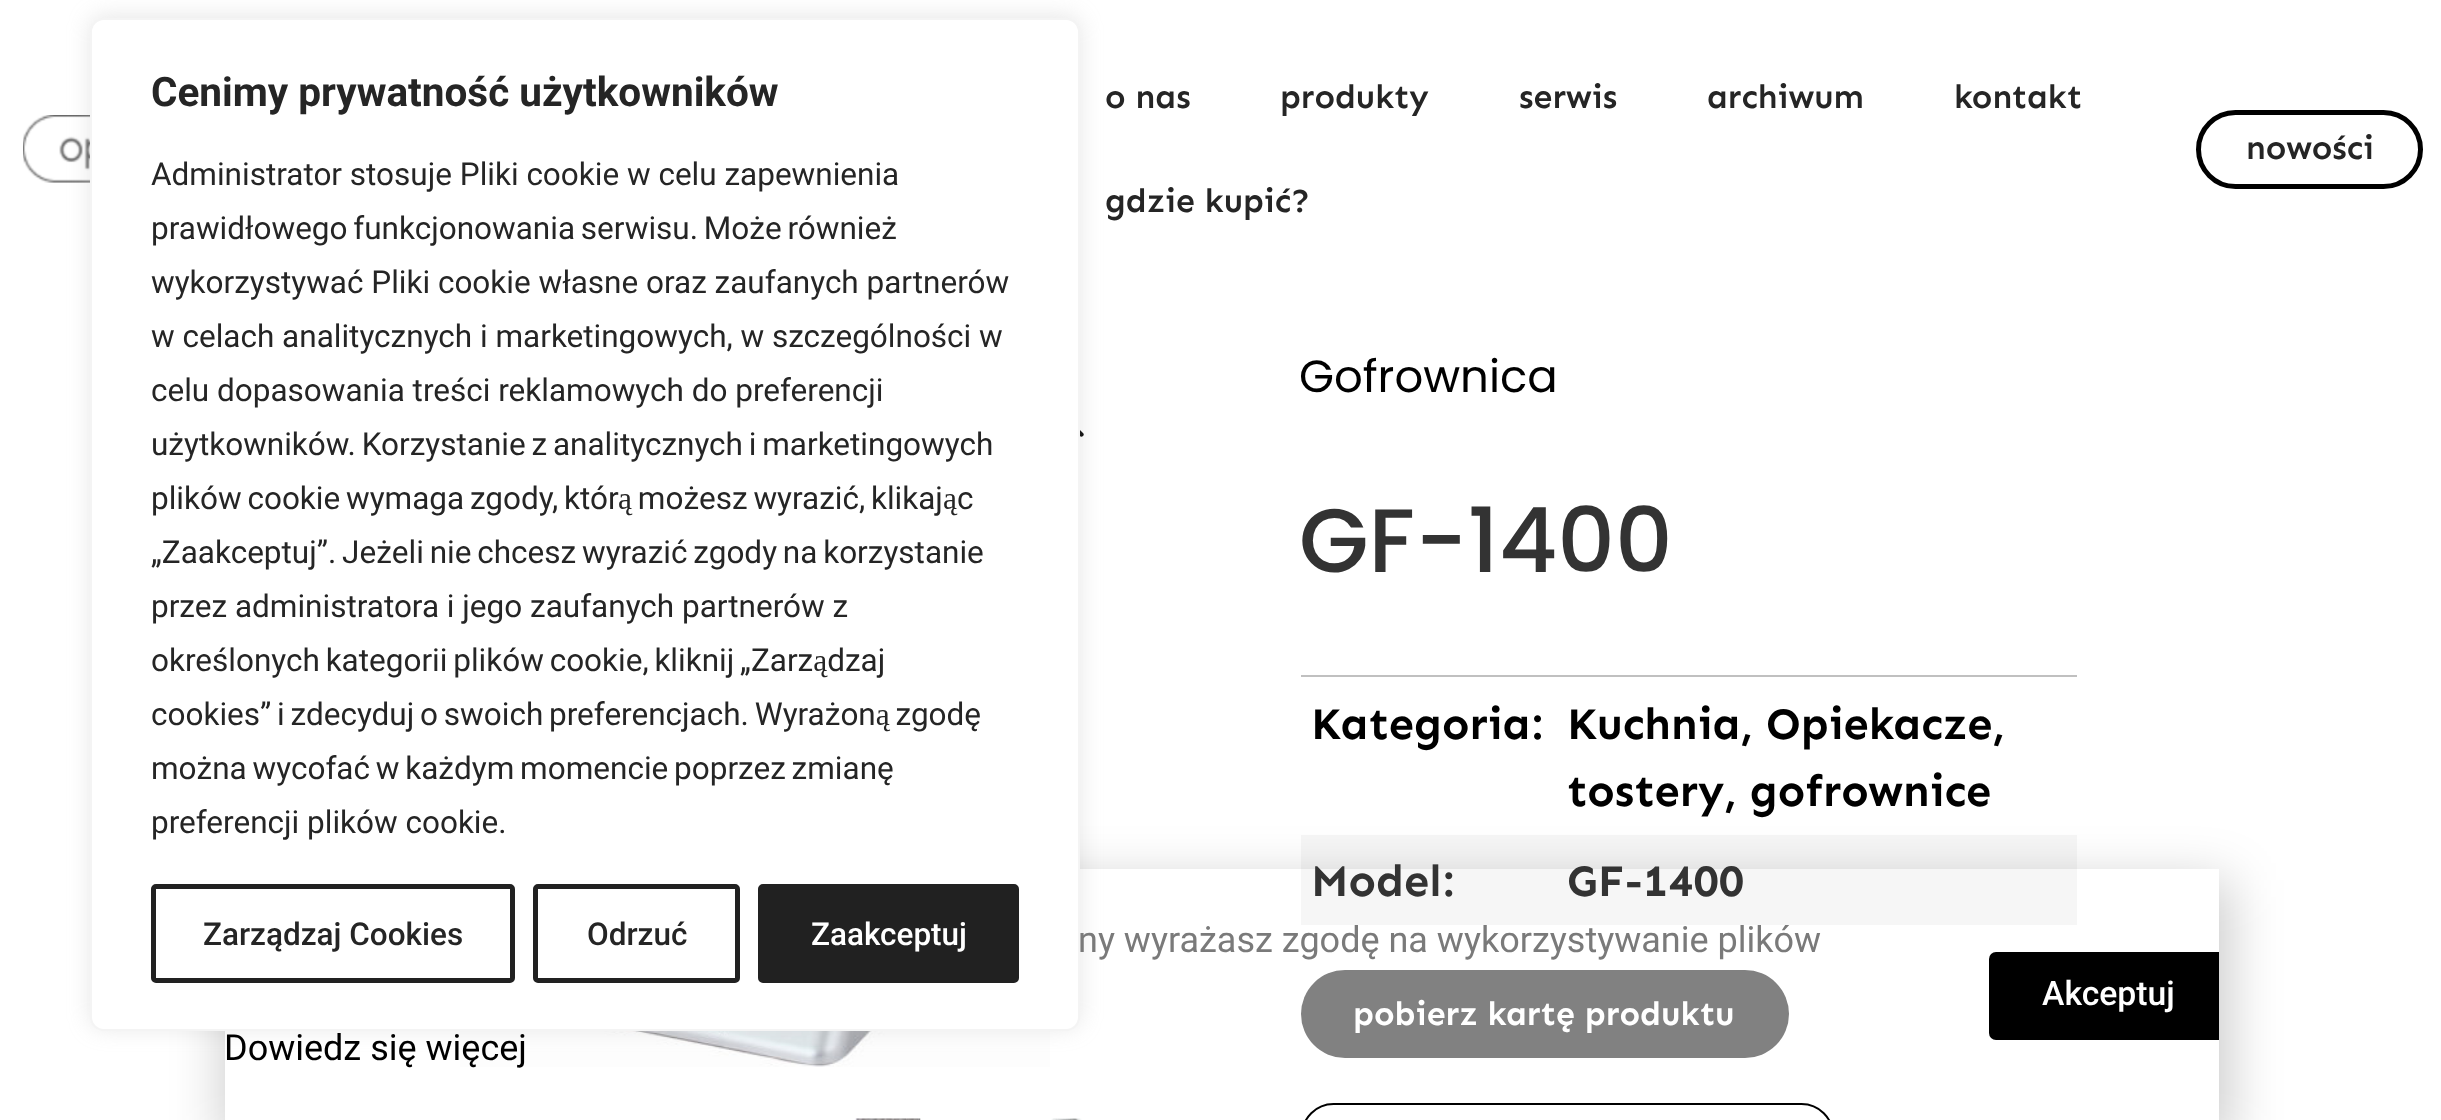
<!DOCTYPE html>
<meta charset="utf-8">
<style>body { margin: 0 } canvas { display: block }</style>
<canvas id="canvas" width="2441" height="1120"></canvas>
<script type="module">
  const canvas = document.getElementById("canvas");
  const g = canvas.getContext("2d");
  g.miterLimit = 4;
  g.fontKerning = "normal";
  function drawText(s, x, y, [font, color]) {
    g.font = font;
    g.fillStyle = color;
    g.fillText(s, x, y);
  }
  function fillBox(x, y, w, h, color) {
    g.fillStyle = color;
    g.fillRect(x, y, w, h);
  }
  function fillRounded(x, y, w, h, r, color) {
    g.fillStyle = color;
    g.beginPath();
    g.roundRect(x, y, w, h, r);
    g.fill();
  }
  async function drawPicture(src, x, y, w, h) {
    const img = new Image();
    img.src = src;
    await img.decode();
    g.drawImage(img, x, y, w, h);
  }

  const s1 = ["bold 40.5px Roboto", "#252525"];
  const s2 = ["31.5px Roboto", "#252525"];
  const s3 = ["500 31.5px Roboto", "#252525"];
  const s4 = ["500 31.5px Roboto", "#FFFFFF"];
  const s5 = ["600 33.75px Sen", "#252525"];
  const s6 = ["45px Poppins", "#000000"];
  const s7 = ["500 90px Poppins", "#333333"];
  const s8 = ["bold 45px Sen", "#000000"];
  const s9 = ["bold 45px Sen", "#333333"];
  const s10 = ["bold 33.75px Sen", "#FFFFFF"];
  const s11 = ["36px Roboto", "#7A7A7A"];
  const s12 = ["36px Roboto", "#000000"];
  const s13 = ["500 33.75px Roboto", "#FFFFFF"];

  fillBox(0, 0, 2441, 1120, "#FFFFFF");
  await drawPicture("pic1.png", 23, 115, 67, 68);
  g.fillStyle = "#000000";
  g.beginPath();
  g.moveTo(1070.5, 423.5);
  g.bezierCurveTo(1071, 422.5, 1072.5, 422.5, 1073.5, 423.5);
  g.lineTo(1083, 433);
  g.bezierCurveTo(1084, 434, 1084, 435, 1083, 436);
  g.bezierCurveTo(1082, 437, 1080.5, 437, 1080, 436);
  g.lineTo(1070.5, 426.5);
  g.bezierCurveTo(1069.5, 425.5, 1069.5, 424.5, 1070.5, 423.5);
  g.closePath();
  g.fill();
  await drawPicture("pic2.png", 460, 1031, 590, 36);
  g.fillStyle = "rgba(172, 171, 171, 0.3)";
  g.filter = "blur(11px)";
  g.beginPath();
  g.roundRect(90, 16, 990, 1012, 14);
  g.fill();
  g.filter = "none";
  await drawPicture("pic3.png", 855, 1118, 66, 2);
  await drawPicture("pic4.png", 1051, 1118, 31, 2);
  fillBox(1301, 835, 776, 90, "#F6F6F6");
  fillRounded(1301, 970, 488, 88, 44, "#818181");
  g.beginPath();
  g.roundRect(1302, 1104, 531, 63, 45);
  g.strokeStyle = "#000000";
  g.lineWidth = 2;
  g.stroke();
  g.save();
  g.beginPath();
  g.moveTo(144, 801);
  g.lineTo(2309, 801);
  g.lineTo(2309, 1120);
  g.lineTo(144, 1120);
  g.closePath();
  g.moveTo(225, 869);
  g.lineTo(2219, 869);
  g.lineTo(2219, 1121);
  g.lineTo(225, 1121);
  g.closePath();
  g.clip("evenodd");
  g.fillStyle = "rgba(0, 0, 0, 0.2)";
  g.filter = "blur(26px)";
  g.beginPath();
  g.rect(223, 880, 2007, 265);
  g.fill();
  g.filter = "none";
  g.restore();
  g.fillStyle = "#FFFFFF";
  g.beginPath();
  g.roundRect(91, 19, 988, 1011, 13);
  g.fill();
  g.strokeStyle = "#F4F4F4";
  g.stroke();
  drawText("Cenimy prywatność użytkowników", 151, 106, s1);
  drawText("Administrator stosuje Pliki cookie w celu zapewnienia", 151, 185, s2);
  g.wordSpacing = "-2px";
  drawText("prawidłowego funkcjonowania serwisu. Może również", 151, 239, s2);
  g.wordSpacing = "0px";
  drawText("wykorzystywać Pliki cookie własne oraz zaufanych partnerów", 151, 293, s2);
  drawText("w celach analitycznych i marketingowych, w szczególności w", 151, 347, s2);
  drawText("celu dopasowania treści reklamowych do preferencji", 151, 401, s2);
  g.wordSpacing = "-2px";
  drawText("użytkowników. Korzystanie z analitycznych i marketingowych", 151, 455, s2);
  drawText("plików cookie wymaga zgody, którą możesz wyrazić, klikając", 151, 509, s2);
  drawText("„Zaakceptuj”. Jeżeli nie chcesz wyrazić zgody na korzystanie", 151, 563, s2);
  g.wordSpacing = "0px";
  drawText("przez administratora i jego zaufanych partnerów z", 151, 617, s2);
  g.wordSpacing = "-2px";
  drawText("określonych kategorii plików cookie, kliknij „Zarządzaj", 151, 671, s2);
  drawText("cookies” i zdecyduj o swoich preferencjach. Wyrażoną zgodę", 151, 725, s2);
  drawText("można wycofać w każdym momencie poprzez zmianę", 151, 779, s2);
  g.wordSpacing = "0px";
  drawText("preferencji plików cookie.", 151, 833, s2);
  g.beginPath();
  g.roundRect(153.5, 886.5, 359, 94, 2.5);
  g.strokeStyle = "#212121";
  g.lineWidth = 5;
  g.stroke();
  drawText("Zarządzaj Cookies", 203, 945, s3);
  g.beginPath();
  g.roundRect(535.5, 886.5, 202, 94, 2.5);
  g.stroke();
  drawText("Odrzuć", 587, 945, s3);
  g.fillStyle = "#212121";
  g.beginPath();
  g.roundRect(760.5, 886.5, 256, 94, 2.5);
  g.fill();
  g.stroke();
  drawText("Zaakceptuj", 811, 945, s4);
  drawText("o nas", 1105, 108, s5);
  drawText("produkty", 1280, 108, s5);
  drawText("serwis", 1519, 108, s5);
  drawText("archiwum", 1707, 108, s5);
  drawText("kontakt", 1954, 108, s5);
  drawText("gdzie kupić?", 1105, 212, s5);
  g.beginPath();
  g.roundRect(2198.5, 112.5, 222, 74, 37);
  g.strokeStyle = "#000000";
  g.stroke();
  drawText("nowości", 2246, 159, s5);
  drawText("Gofrownica", 1299, 392, s6);
  drawText("GF-1400", 1299, 572, s7);
  fillBox(1301, 675, 776, 2, "#C0C0C0");
  drawText("Kategoria:", 1311, 739, s8);
  drawText("Kuchnia, Opiekacze,", 1567, 739, s8);
  drawText("tostery, gofrownice", 1567, 806, s8);
  drawText("Model:", 1311, 896, s9);
  drawText("GF-1400", 1567, 896, s9);
  drawText("pobierz kartę produktu", 1353, 1025, s10);
  drawText("ny wyrażasz zgodę na wykorzystywanie plików", 1078, 952, s11);
  drawText("Dowiedz się więcej", 224, 1060, s12);
  g.beginPath();
  g.roundRect(1989, 952, 230, 88, [7, 0, 0, 7]);
  g.fill();
  drawText("Akceptuj", 2042, 1005, s13);
</script>
